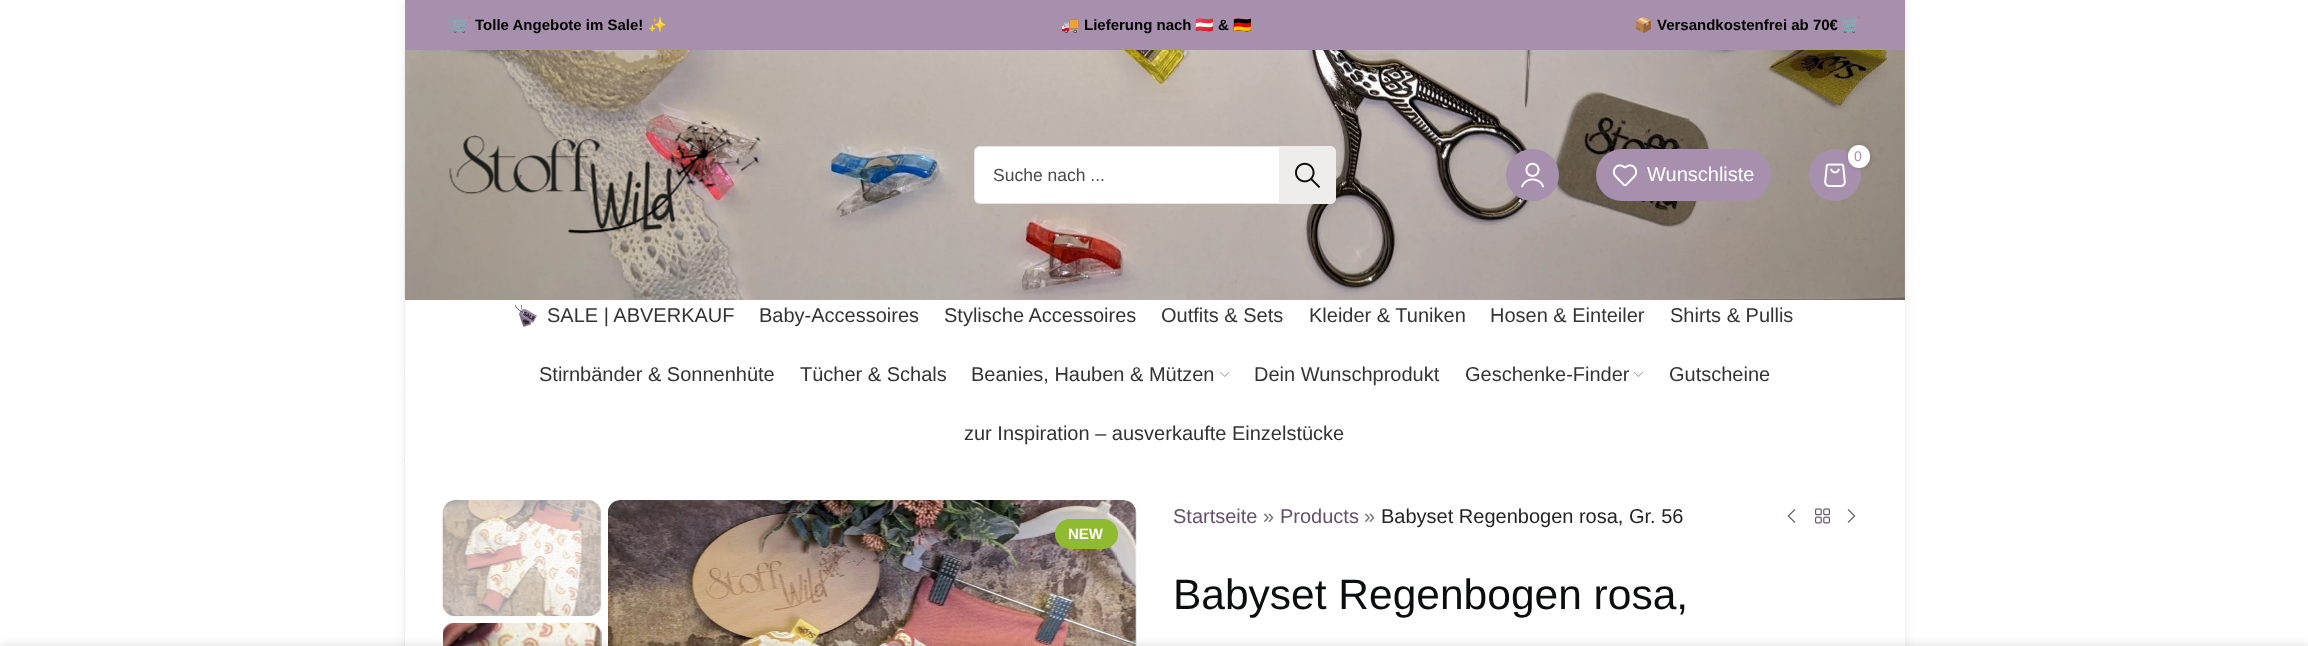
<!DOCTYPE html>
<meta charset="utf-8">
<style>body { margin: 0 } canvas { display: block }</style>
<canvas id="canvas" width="2308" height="646"></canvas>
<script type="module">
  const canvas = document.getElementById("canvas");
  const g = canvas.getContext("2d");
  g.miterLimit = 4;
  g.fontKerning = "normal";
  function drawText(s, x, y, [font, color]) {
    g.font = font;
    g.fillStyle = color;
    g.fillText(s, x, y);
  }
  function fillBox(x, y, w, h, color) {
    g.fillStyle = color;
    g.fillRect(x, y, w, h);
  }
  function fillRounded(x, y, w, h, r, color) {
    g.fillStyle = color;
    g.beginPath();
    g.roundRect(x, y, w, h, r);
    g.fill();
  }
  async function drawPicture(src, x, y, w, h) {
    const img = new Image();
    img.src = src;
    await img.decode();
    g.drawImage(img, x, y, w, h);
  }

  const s1 = ["bold 15px Noto Color Emoji", "#000000"];
  const s2 = ["bold 15px Liberation Sans", "#000000"];
  const s3 = ["17.5px Liberation Sans", "#4A4A4A"];
  const s4 = ["14px Liberation Sans", "#A790AD"];
  const s5 = ["20px Liberation Sans", "#FFFFFF"];
  const s6 = ["20px Liberation Sans", "#333333"];
  const s7 = ["bold 15px Liberation Sans", "#FFFFFF"];
  const s8 = ["20px Liberation Sans", "#645169"];
  const s9 = ["20px Liberation Sans", "#767676"];
  const s10 = ["20px Liberation Sans", "#242424"];
  const s11 = ["42.5px Liberation Sans", "#0C0D0E"];

  fillBox(0, 0, 2308, 646, "#FFFFFF");
  g.fillStyle = "rgba(0, 0, 0, 0.08)";
  g.filter = "blur(5.5px)";
  g.beginPath();
  g.rect(405, 1, 1500, 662);
  g.fill();
  g.filter = "none";
  fillBox(405, 0, 1500, 50, "#A790AD");
  drawText("🛒", 452, 30, s1);
  drawText("Tolle Angebote im Sale!", 475, 30, s2);
  drawText("✨", 648, 30, s1);
  drawText("🚚", 1061, 30, s1);
  drawText("Lieferung nach", 1084, 30, s2);
  drawText("🇦🇹", 1195, 30, s1);
  drawText("&", 1218, 30, s2);
  drawText("🇩🇪", 1233, 30, s1);
  drawText("📦", 1634, 30, s1);
  drawText("Versandkostenfrei ab 70€", 1657, 30, s2);
  drawText("🛒", 1842, 30, s1);
  await drawPicture("pic10.png", 404, 166, 1501, 480);
  await drawPicture("pic1.png", 404, 50, 1501, 250);
  await drawPicture("pic2.png", 449, 120, 312, 114);
  fillRounded(974, 146, 362, 58, 6, "#FFFFFF");
  g.beginPath();
  g.roundRect(974.5, 146.5, 361, 57, 5.5);
  g.strokeStyle = "rgba(0, 0, 0, 0.1)";
  g.stroke();
  drawText("Suche nach ...", 993, 181, s3);
  g.fillStyle = "#EEEDEB";
  g.beginPath();
  g.roundRect(1279, 146, 57, 58, [0, 6, 6, 0]);
  g.fill();
  await drawPicture("pic3.png", 1295, 162, 25, 26);
  fillRounded(1506, 149, 53, 52, 26, "#A790AD");
  await drawPicture("pic4.png", 1521, 162, 23, 26);
  g.beginPath();
  g.arc(1835, 175, 26, 0, Math.PI * 2);
  g.fill();
  await drawPicture("pic5.png", 1824, 163, 22, 24);
  g.fillStyle = "rgba(0, 0, 0, 0.17)";
  g.filter = "blur(2.5px)";
  g.beginPath();
  g.roundRect(1848, 145, 22, 23, 11);
  g.fill();
  g.filter = "none";
  fillRounded(1848, 145, 22, 23, 11, "#FFFFFF");
  drawText("0", 1854, 161, s4);
  fillRounded(1596, 149, 175, 52, 26, "#A790AD");
  await drawPicture("pic6.png", 1612, 164, 26, 23);
  drawText("Wunschliste", 1647, 181, s5);
  fillBox(405, 300, 1500, 346, "#FFFFFF");
  await drawPicture("pic7.png", 515, 305, 22, 22);
  drawText("SALE | ABVERKAUF", 547, 322, s6);
  drawText("Baby-Accessoires", 759, 322, s6);
  drawText("Stylische Accessoires", 944, 322, s6);
  drawText("Outfits & Sets", 1161, 322, s6);
  drawText("Kleider & Tuniken", 1309, 322, s6);
  drawText("Hosen & Einteiler", 1490, 322, s6);
  drawText("Shirts & Pullis", 1670, 322, s6);
  drawText("Stirnbänder & Sonnenhüte", 539, 381, s6);
  drawText("Tücher & Schals", 800, 381, s6);
  drawText("Beanies, Hauben & Mützen", 971, 381, s6);
  await drawPicture("pic8.png", 1220, 371, 10, 6);
  drawText("Dein Wunschprodukt", 1254, 381, s6);
  drawText("Geschenke-Finder", 1465, 381, s6);
  await drawPicture("pic9.png", 1634, 371, 9, 6);
  drawText("Gutscheine", 1669, 381, s6);
  drawText("zur Inspiration – ausverkaufte Einzelstücke", 964, 440, s6);
  await drawPicture("pic11.png", 442, 500, 160, 117);
  await drawPicture("pic12.png", 443, 623, 159, 23);
  await drawPicture("pic13.png", 608, 500, 529, 146);
  fillRounded(1055, 519, 63, 30, 15, "#90BA30");
  drawText("NEW", 1068, 539, s7);
  drawText("Startseite", 1173, 523, s8);
  drawText("»", 1263, 523, s9);
  drawText("Products", 1280, 523, s8);
  drawText("»", 1364, 523, s9);
  drawText("Babyset Regenbogen rosa, Gr. 56", 1381, 523, s10);
  await drawPicture("pic14.png", 1787, 509, 9, 14);
  await drawPicture("pic15.png", 1815, 508, 15, 16);
  await drawPicture("pic16.png", 1847, 509, 9, 14);
  drawText("Babyset Regenbogen rosa,", 1173, 609, s11);
  g.fillStyle = "rgba(0, 0, 0, 0.14)";
  g.filter = "blur(5.5px)";
  g.beginPath();
  g.rect(0, 646, 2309, 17);
  g.fill();
  g.filter = "none";
</script>
